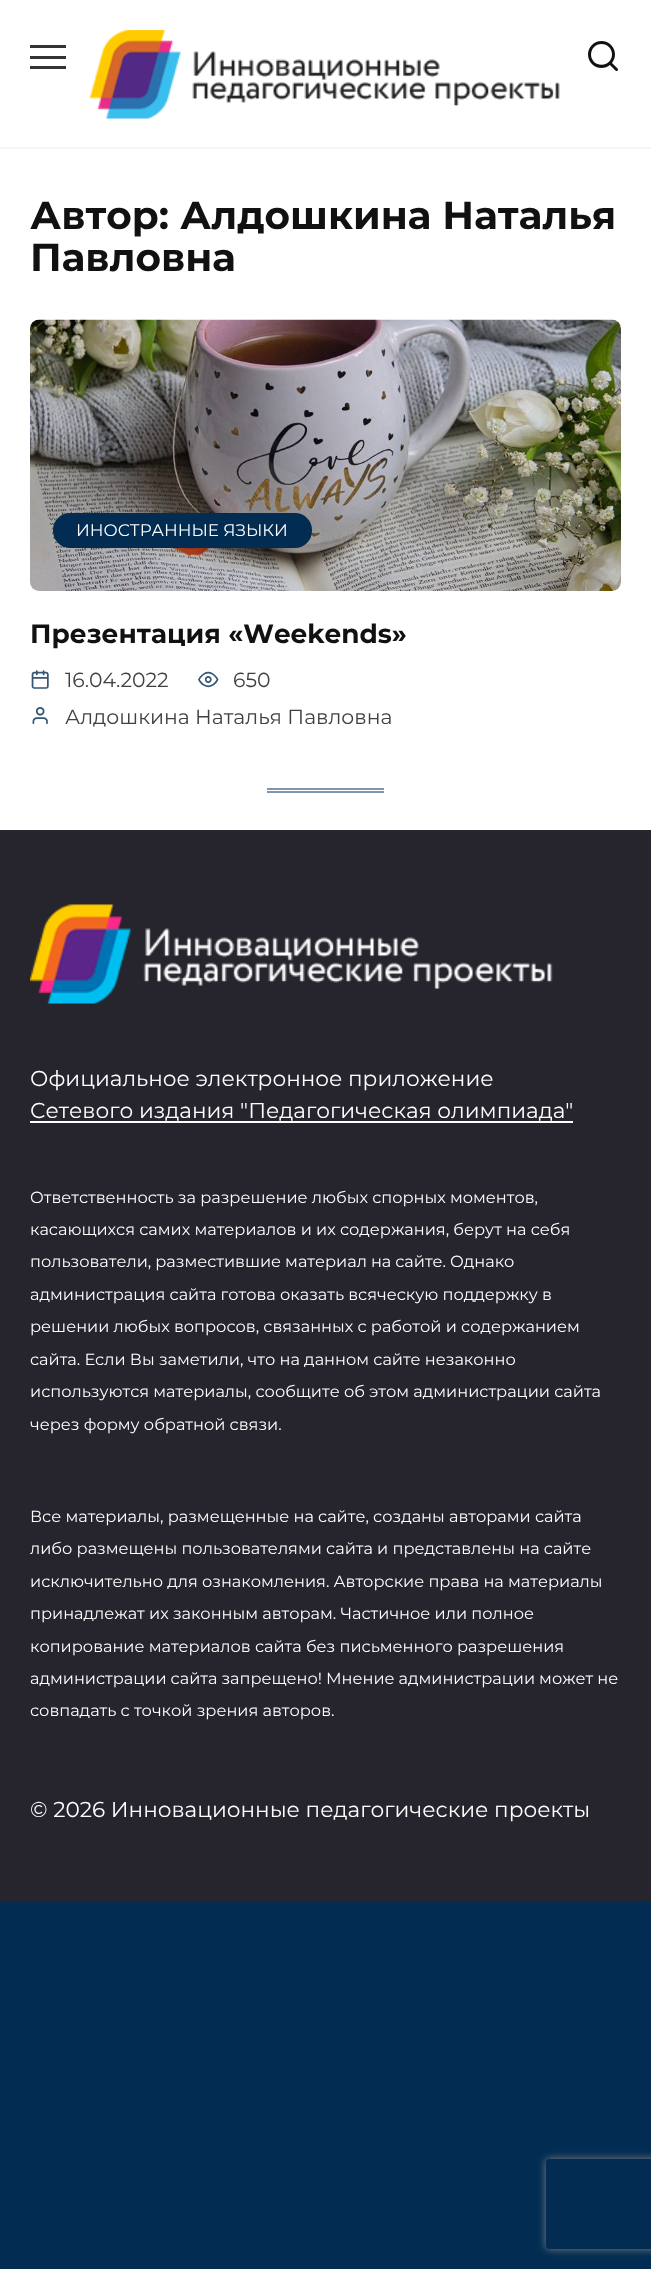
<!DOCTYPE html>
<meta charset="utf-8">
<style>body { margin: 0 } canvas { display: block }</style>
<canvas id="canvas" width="651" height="2269"></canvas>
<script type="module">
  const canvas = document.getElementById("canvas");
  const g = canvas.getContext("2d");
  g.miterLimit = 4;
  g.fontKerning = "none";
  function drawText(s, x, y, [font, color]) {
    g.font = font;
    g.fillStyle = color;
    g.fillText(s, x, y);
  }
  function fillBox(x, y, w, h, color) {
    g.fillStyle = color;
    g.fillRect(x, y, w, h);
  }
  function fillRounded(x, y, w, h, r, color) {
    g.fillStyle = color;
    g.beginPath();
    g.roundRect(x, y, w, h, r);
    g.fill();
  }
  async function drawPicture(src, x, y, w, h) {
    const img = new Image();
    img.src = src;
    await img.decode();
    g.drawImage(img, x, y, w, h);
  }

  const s1 = ["36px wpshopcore", "#111111"];
  const s2 = ["bold 39px Montserrat", "#111111"];
  const s3 = ["16.75px Montserrat", "#FFFFFF"];
  const s4 = ["bold 26.4px Montserrat", "#111111"];
  const s5 = ["20.4px wpshopcore", "#355675"];
  const s6 = ["20.4px Montserrat", "#414141"];
  const s7 = ["21.6px Montserrat", "#FFFFFF"];
  const s8 = ["16.2px Montserrat", "#FFFFFF"];

  fillBox(0, 0, 651, 2269, "#022C52");
  fillBox(0, 0, 651, 147, "#FFFFFF");
  fillBox(0, 147, 651, 2, "#F2F5F9");
  fillBox(30, 45, 36, 3, "#333333");
  fillBox(30, 56, 36, 3, "#333333");
  fillBox(30, 66, 36, 3, "#333333");
  await drawPicture("pic1.png", 90, 30, 470, 89);
  drawText("🔍", 585, 71, s1);
  fillBox(0, 149, 651, 681, "#FFFFFF");
  drawText("Автор: Алдошкина Наталья", 30, 229, s2);
  drawText("Павловна", 30, 271, s2);
  await drawPicture("pic2.png", 30, 319, 591, 272);
  fillRounded(53, 513, 259, 35, 17, "#022C52");
  drawText("ИНОСТРАННЫЕ ЯЗЫКИ", 76, 536, s3);
  drawText("Презентация «Weekends»", 30, 643, s4);
  drawText("📅", 30, 688, s5);
  drawText("16.04.2022", 65, 687, s6);
  drawText("👀", 198, 688, s5);
  drawText("650", 233, 687, s6);
  drawText("👤", 30, 724, s5);
  drawText("Алдошкина Наталья Павловна", 65, 724, s6);
  fillBox(267, 788, 117, 2, "#8196A9");
  fillBox(267, 791, 117, 2, "#8196A9");
  fillBox(0, 830, 651, 1072, "#26252D");
  await drawPicture("pic3.png", 30, 904, 523, 100);
  drawText("Официальное электронное приложение", 30, 1086, s7);
  drawText("Сетевого издания \"Педагогическая олимпиада\"", 30, 1118, s7);
  fillBox(30, 1121, 543, 2, "#FFFFFF");
  drawText("Ответственность за разрешение любых спорных моментов,", 30, 1203, s8);
  drawText("касающихся самих материалов и их содержания, берут на себя", 30, 1235, s8);
  g.wordSpacing = "-0.25px";
  drawText("пользователи, разместившие материал на сайте. Однако", 30, 1267, s8);
  g.wordSpacing = "0px";
  drawText("администрация сайта готова оказать всяческую поддержку в", 30, 1300, s8);
  drawText("решении любых вопросов, связанных с работой и содержанием", 30, 1332, s8);
  drawText("сайта. Если Вы заметили, что на данном сайте незаконно", 30, 1365, s8);
  drawText("используются материалы, сообщите об этом администрации сайта", 30, 1397, s8);
  drawText("через форму обратной связи.", 30, 1430, s8);
  drawText("Все материалы, размещенные на сайте, созданы авторами сайта", 30, 1522, s8);
  drawText("либо размещены пользователями сайта и представлены на сайте", 30, 1554, s8);
  drawText("исключительно для ознакомления. Авторские права на материалы", 30, 1587, s8);
  drawText("принадлежат их законным авторам. Частичное или полное", 30, 1619, s8);
  drawText("копирование материалов сайта без письменного разрешения", 30, 1652, s8);
  g.wordSpacing = "-0.25px";
  drawText("администрации сайта запрещено! Мнение администрации может не", 30, 1684, s8);
  g.wordSpacing = "0px";
  drawText("совпадать с точкой зрения авторов.", 30, 1716, s8);
  drawText("© 2026 Инновационные педагогические проекты", 30, 1817, s7);
  g.save();
  g.beginPath();
  g.moveTo(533, 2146);
  g.lineTo(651, 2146);
  g.lineTo(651, 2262);
  g.lineTo(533, 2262);
  g.closePath();
  g.moveTo(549, 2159);
  g.lineTo(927, 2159);
  g.bezierCurveTo(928.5, 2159, 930, 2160.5, 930, 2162);
  g.lineTo(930, 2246);
  g.bezierCurveTo(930, 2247.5, 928.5, 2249, 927, 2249);
  g.lineTo(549, 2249);
  g.bezierCurveTo(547.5, 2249, 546, 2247.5, 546, 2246);
  g.lineTo(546, 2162);
  g.bezierCurveTo(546, 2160.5, 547.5, 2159, 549, 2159);
  g.closePath();
  g.clip("evenodd");
  g.fillStyle = "#808080";
  g.filter = "blur(4px)";
  g.beginPath();
  g.roundRect(546, 2159, 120, 90, 3);
  g.fill();
  g.filter = "none";
  g.restore();
</script>
